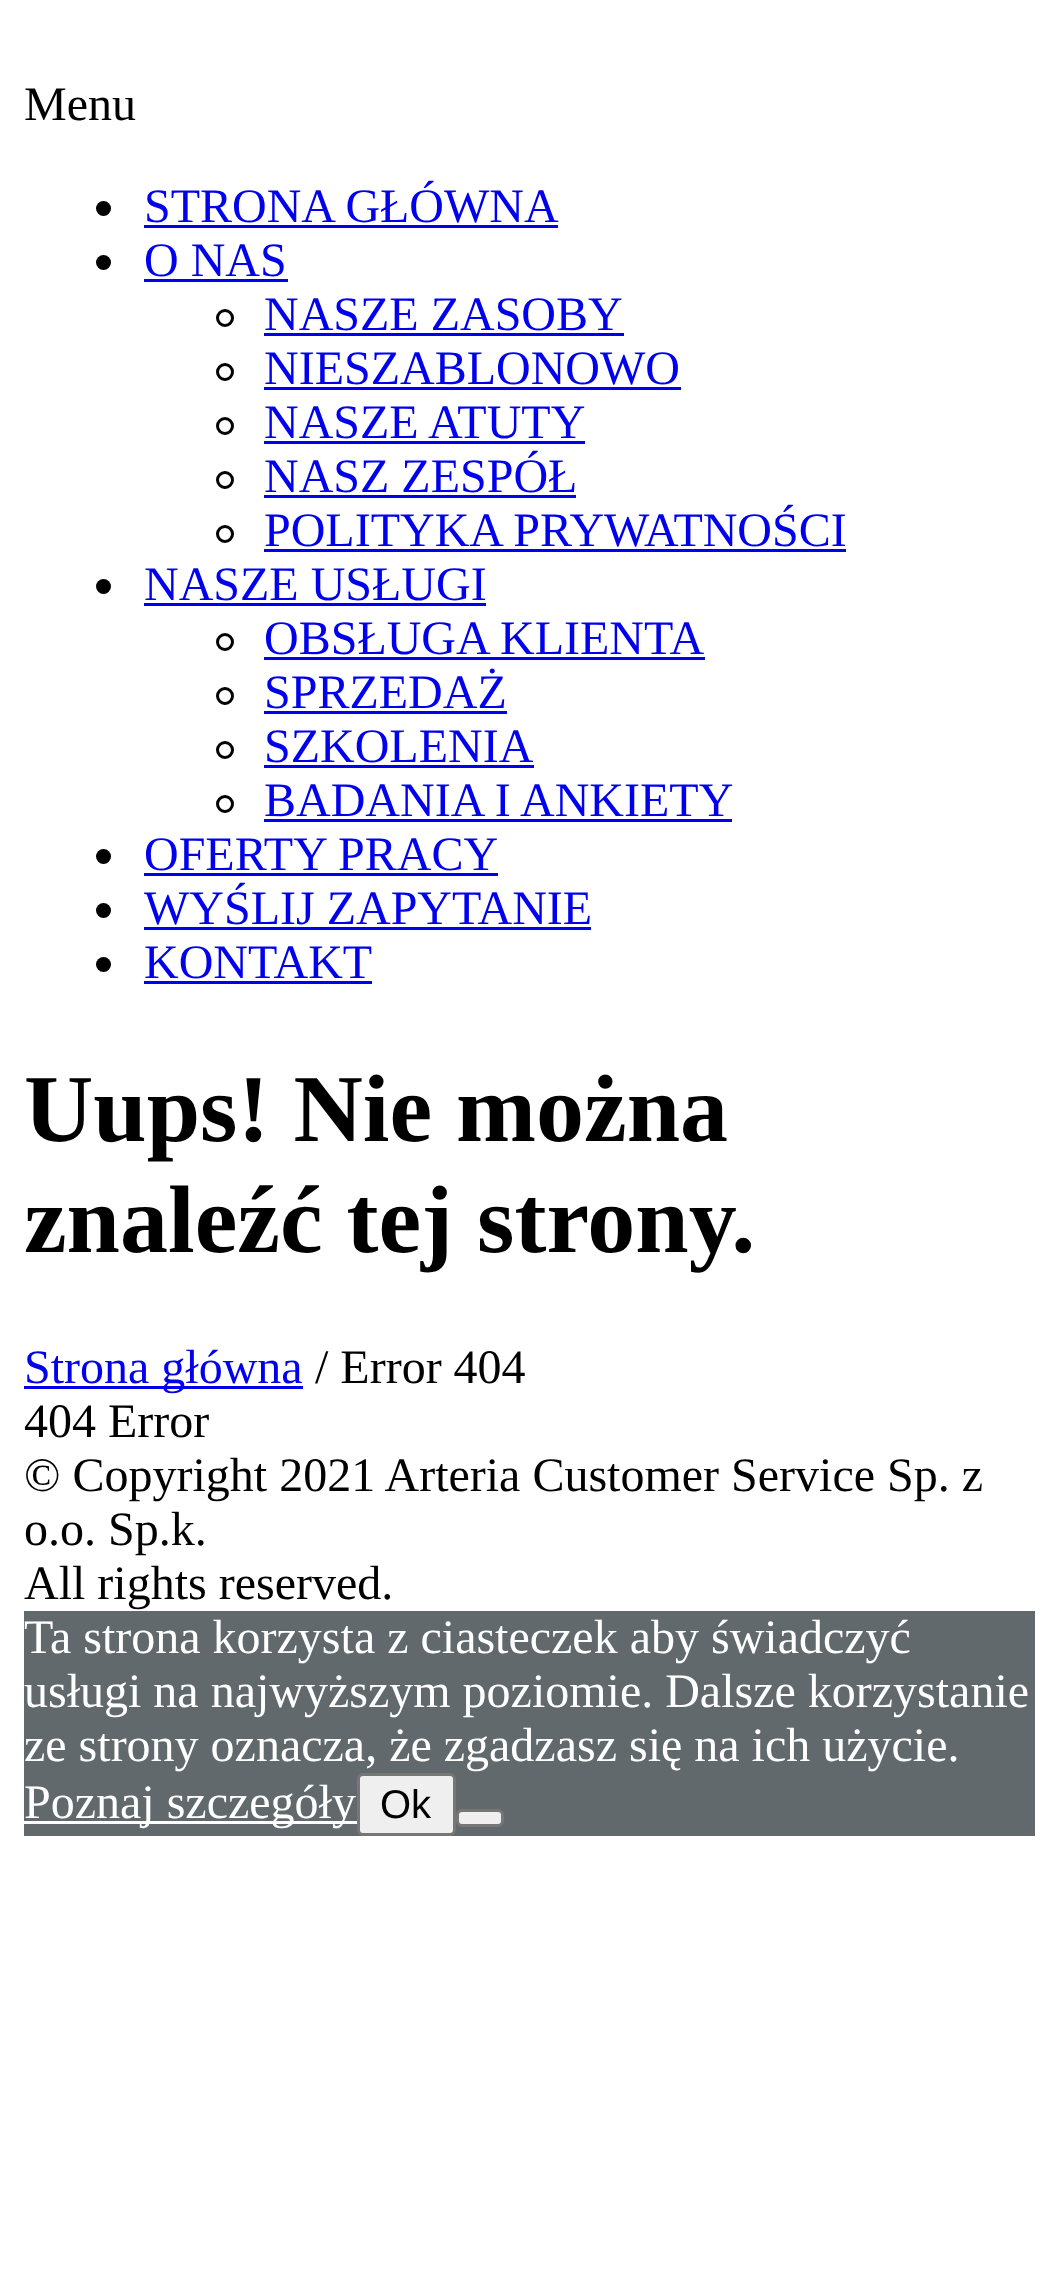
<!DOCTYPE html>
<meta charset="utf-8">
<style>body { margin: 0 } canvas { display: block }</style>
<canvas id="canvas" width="1059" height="2269"></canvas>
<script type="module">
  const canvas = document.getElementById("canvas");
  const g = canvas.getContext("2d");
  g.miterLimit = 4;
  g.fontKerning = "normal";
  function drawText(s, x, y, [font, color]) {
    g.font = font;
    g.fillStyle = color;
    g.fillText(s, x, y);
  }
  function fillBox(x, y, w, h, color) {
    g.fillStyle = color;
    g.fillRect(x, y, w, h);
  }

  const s1 = ["48px Liberation Serif", "#000000"];
  const s2 = ["48px Liberation Serif", "#0000EE"];
  const s3 = ["bold 96px Liberation Serif", "#000000"];
  const s4 = ["48px Liberation Serif", "#FFFFFF"];
  const s5 = ["40px Liberation Sans", "#000000"];

  fillBox(0, 0, 1059, 2269, "#FFFFFF");
  drawText("Menu", 24, 120, s1);
  g.beginPath();
  g.arc(103.5, 208.5, 7.5, 0, Math.PI * 2);
  g.fill();
  drawText("STRONA GŁÓWNA", 144, 222, s2);
  fillBox(144, 225, 414, 3, "#0000EE");
  g.fillStyle = "#000000";
  g.beginPath();
  g.arc(103.5, 262.5, 7.5, 0, Math.PI * 2);
  g.fill();
  drawText("O NAS", 144, 276, s2);
  fillBox(144, 279, 144, 3, "#0000EE");
  g.beginPath();
  g.arc(225, 318, 7.5, 0, Math.PI * 2);
  g.strokeStyle = "#000000";
  g.lineWidth = 3;
  g.stroke();
  drawText("NASZE ZASOBY", 264, 330, s2);
  fillBox(264, 333, 360, 3, "#0000EE");
  g.beginPath();
  g.arc(225, 372, 7.5, 0, Math.PI * 2);
  g.stroke();
  drawText("NIESZABLONOWO", 264, 384, s2);
  fillBox(264, 387, 417, 3, "#0000EE");
  g.beginPath();
  g.arc(225, 426, 7.5, 0, Math.PI * 2);
  g.stroke();
  drawText("NASZE ATUTY", 264, 438, s2);
  fillBox(264, 441, 321, 3, "#0000EE");
  g.beginPath();
  g.arc(225, 480, 7.5, 0, Math.PI * 2);
  g.stroke();
  drawText("NASZ ZESPÓŁ", 264, 492, s2);
  fillBox(264, 495, 312, 3, "#0000EE");
  g.beginPath();
  g.arc(225, 534, 7.5, 0, Math.PI * 2);
  g.stroke();
  drawText("POLITYKA PRYWATNOŚCI", 264, 546, s2);
  fillBox(264, 549, 582, 3, "#0000EE");
  g.fillStyle = "#000000";
  g.beginPath();
  g.arc(103.5, 586.5, 7.5, 0, Math.PI * 2);
  g.fill();
  drawText("NASZE USŁUGI", 144, 600, s2);
  fillBox(144, 603, 342, 3, "#0000EE");
  g.beginPath();
  g.arc(225, 642, 7.5, 0, Math.PI * 2);
  g.stroke();
  drawText("OBSŁUGA KLIENTA", 264, 654, s2);
  fillBox(264, 657, 441, 3, "#0000EE");
  g.beginPath();
  g.arc(225, 696, 7.5, 0, Math.PI * 2);
  g.stroke();
  drawText("SPRZEDAŻ", 264, 708, s2);
  fillBox(264, 711, 243, 3, "#0000EE");
  g.beginPath();
  g.arc(225, 750, 7.5, 0, Math.PI * 2);
  g.stroke();
  drawText("SZKOLENIA", 264, 762, s2);
  fillBox(264, 765, 270, 3, "#0000EE");
  g.beginPath();
  g.arc(225, 804, 7.5, 0, Math.PI * 2);
  g.stroke();
  drawText("BADANIA I ANKIETY", 264, 816, s2);
  fillBox(264, 819, 468, 3, "#0000EE");
  g.fillStyle = "#000000";
  g.beginPath();
  g.arc(103.5, 856.5, 7.5, 0, Math.PI * 2);
  g.fill();
  drawText("OFERTY PRACY", 144, 870, s2);
  fillBox(144, 873, 354, 3, "#0000EE");
  g.fillStyle = "#000000";
  g.beginPath();
  g.arc(103.5, 910.5, 7.5, 0, Math.PI * 2);
  g.fill();
  drawText("WYŚLIJ ZAPYTANIE", 144, 924, s2);
  fillBox(144, 927, 447, 3, "#0000EE");
  g.fillStyle = "#000000";
  g.beginPath();
  g.arc(103.5, 964.5, 7.5, 0, Math.PI * 2);
  g.fill();
  drawText("KONTAKT", 144, 978, s2);
  fillBox(144, 981, 228, 3, "#0000EE");
  drawText("Uups! Nie można", 24, 1141, s3);
  drawText("znaleźć tej strony.", 24, 1252, s3);
  fillBox(24, 1386, 279, 3, "#0000EE");
  drawText("Strona główna", 24, 1383, s2);
  drawText("/ Error 404", 315, 1383, s1);
  drawText("404 Error", 24, 1437, s1);
  drawText("© Copyright 2021 Arteria Customer Service Sp. z", 24, 1491, s1);
  drawText("o.o. Sp.k.", 24, 1545, s1);
  drawText("All rights reserved.", 24, 1599, s1);
  fillBox(24, 1611, 1011, 225, "#61696D");
  drawText("Ta strona korzysta z ciasteczek aby świadczyć", 24, 1653, s4);
  drawText("usługi na najwyższym poziomie. Dalsze korzystanie", 24, 1707, s4);
  drawText("ze strony oznacza, że zgadzasz się na ich użycie.", 24, 1761, s4);
  fillBox(24, 1821, 333, 3, "#FFFFFF");
  drawText("Poznaj szczegóły", 24, 1818, s4);
  g.fillStyle = "#EFEFEF";
  g.beginPath();
  g.roundRect(358.5, 1774.5, 96, 60, 4.5);
  g.fill();
  g.strokeStyle = "#767676";
  g.stroke();
  drawText("Ok", 380, 1818, s5);
  g.fillStyle = "#EFEFEF";
  g.beginPath();
  g.roundRect(457.5, 1810.5, 45, 15, 4.5);
  g.fill();
  g.stroke();
</script>
